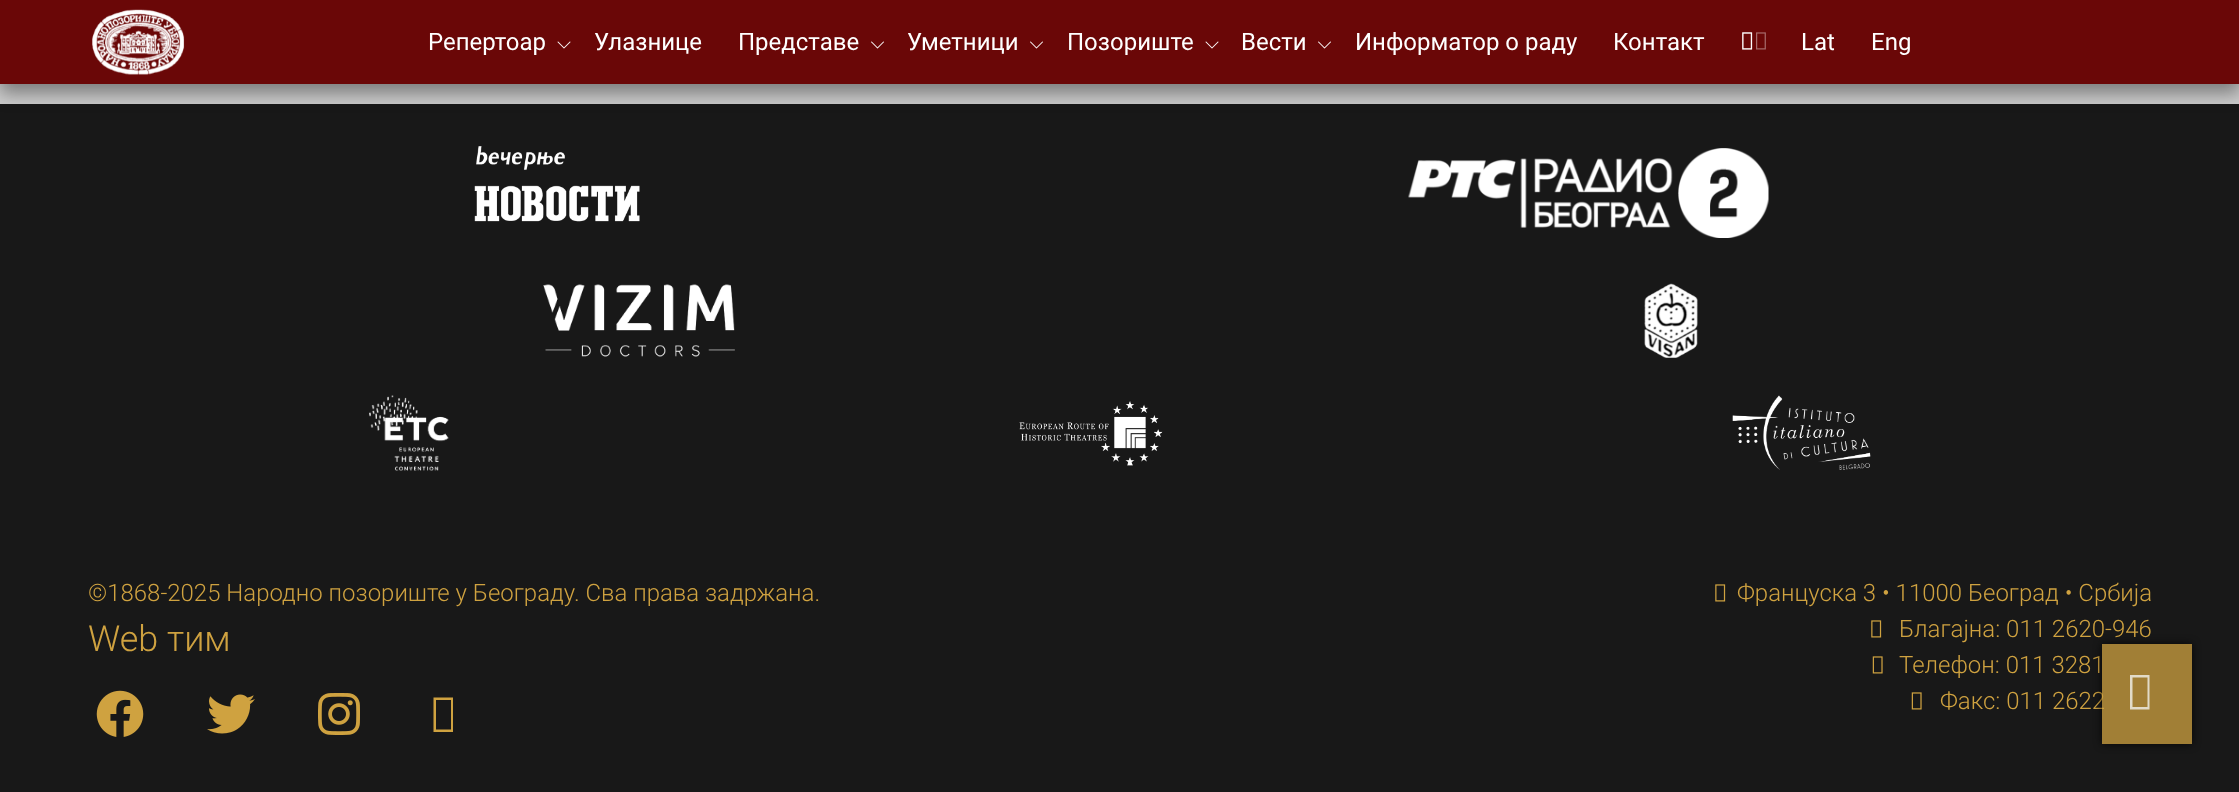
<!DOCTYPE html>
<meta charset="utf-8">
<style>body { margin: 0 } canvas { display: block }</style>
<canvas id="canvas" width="2239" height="792"></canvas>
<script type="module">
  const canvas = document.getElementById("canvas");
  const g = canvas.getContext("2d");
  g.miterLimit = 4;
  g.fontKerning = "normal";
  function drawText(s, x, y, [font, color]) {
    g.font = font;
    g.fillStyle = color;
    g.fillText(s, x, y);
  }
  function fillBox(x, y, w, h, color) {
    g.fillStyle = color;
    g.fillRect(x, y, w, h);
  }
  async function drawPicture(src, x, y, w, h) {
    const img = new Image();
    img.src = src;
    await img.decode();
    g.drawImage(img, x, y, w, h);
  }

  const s1 = ["24px Roboto", "#FFFFFF"];
  const s2 = ["300 24px Roboto", "#CFA240"];
  const s3 = ["300 36px Roboto", "#CFA240"];

  fillBox(0, 0, 2239, 792, "#CCCCCC");
  fillBox(0, 104, 2239, 688, "#181818");
  g.fillStyle = "rgba(0, 0, 0, 0.4)";
  g.filter = "blur(9px)";
  g.beginPath();
  g.rect(0, 9, 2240, 84);
  g.fill();
  g.filter = "none";
  fillBox(0, 0, 2239, 84, "#6A0707");
  await drawPicture("pic1.png", 92, 9, 93, 66);
  await drawPicture("pic2.png", 557, 41, 14, 8);
  drawText("Репертоар", 428, 50, s1);
  drawText("Улазнице", 594, 50, s1);
  await drawPicture("pic3.png", 871, 41, 13, 8);
  drawText("Представе", 738, 50, s1);
  await drawPicture("pic3.png", 1030, 41, 13, 8);
  drawText("Уметници", 907, 50, s1);
  await drawPicture("pic2.png", 1205, 41, 14, 8);
  drawText("Позориште", 1067, 50, s1);
  await drawPicture("pic3.png", 1318, 41, 13, 8);
  drawText("Вести", 1241, 50, s1);
  drawText("Информатор о раду", 1355, 50, s1);
  drawText("Контакт", 1613, 50, s1);
  await drawPicture("pic4.png", 1742, 32, 11, 18);
  await drawPicture("pic5.png", 1742, 32, 24, 18);
  drawText("Lat", 1801, 50, s1);
  drawText("Eng", 1871, 50, s1);
  await drawPicture("pic6.png", 474, 146, 166, 76);
  await drawPicture("pic7.png", 1408, 148, 361, 90);
  await drawPicture("pic8.png", 543, 284, 192, 73);
  await drawPicture("pic9.png", 1644, 283, 54, 75);
  await drawPicture("pic10.png", 369, 395, 80, 76);
  await drawPicture("pic11.png", 1019, 401, 144, 65);
  await drawPicture("pic12.png", 1732, 395, 139, 75);
  drawText("©1868-2025 Народно позориште у Београду. Сва права задржана.", 88, 601, s2);
  drawText("Web тим", 88, 651, s3);
  await drawPicture("pic13.png", 96, 690, 48, 47);
  await drawPicture("pic14.png", 207, 694, 48, 40);
  await drawPicture("pic15.png", 318, 693, 42, 42);
  g.beginPath();
  g.moveTo(433.5, 732);
  g.lineTo(433.5, 697.5);
  g.lineTo(453, 697.5);
  g.lineTo(453, 732);
  g.closePath();
  g.moveTo(436, 729.5);
  g.lineTo(451, 729.5);
  g.lineTo(451, 700);
  g.lineTo(436, 700);
  g.closePath();
  g.fill();
  await drawPicture("pic16.png", 1715, 584, 11, 18);
  drawText("Француска 3 • 11000 Београд • Србија", 1737, 601, s2);
  await drawPicture("pic16.png", 1871, 620, 11, 18);
  drawText("Благајна: 011 2620-946", 1899, 637, s2);
  await drawPicture("pic17.png", 1872, 656, 11, 18);
  drawText("Телефон: 011 3281", 1899, 673, s2);
  await drawPicture("pic17.png", 1911, 692, 11, 18);
  drawText("Факс: 011 2622", 1940, 709, s2);
  g.save();
  g.beginPath();
  g.moveTo(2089, 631);
  g.lineTo(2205, 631);
  g.lineTo(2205, 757);
  g.lineTo(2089, 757);
  g.closePath();
  g.moveTo(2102, 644);
  g.lineTo(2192, 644);
  g.lineTo(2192, 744);
  g.lineTo(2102, 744);
  g.closePath();
  g.clip("evenodd");
  g.fillStyle = "rgba(0, 0, 0, 0.75)";
  g.filter = "blur(4px)";
  g.beginPath();
  g.rect(2102, 644, 90, 100);
  g.fill();
  g.filter = "none";
  g.restore();
  fillBox(2102, 644, 90, 100, "rgba(207, 162, 64, 0.75)");
  g.fillStyle = "rgba(248, 249, 250, 0.75)";
  g.beginPath();
  g.moveTo(2130, 709.5);
  g.lineTo(2130, 675);
  g.lineTo(2149.5, 675);
  g.lineTo(2149.5, 709.5);
  g.closePath();
  g.moveTo(2132.5, 707);
  g.lineTo(2147.5, 707);
  g.lineTo(2147.5, 677.5);
  g.lineTo(2132.5, 677.5);
  g.closePath();
  g.fill();
</script>
